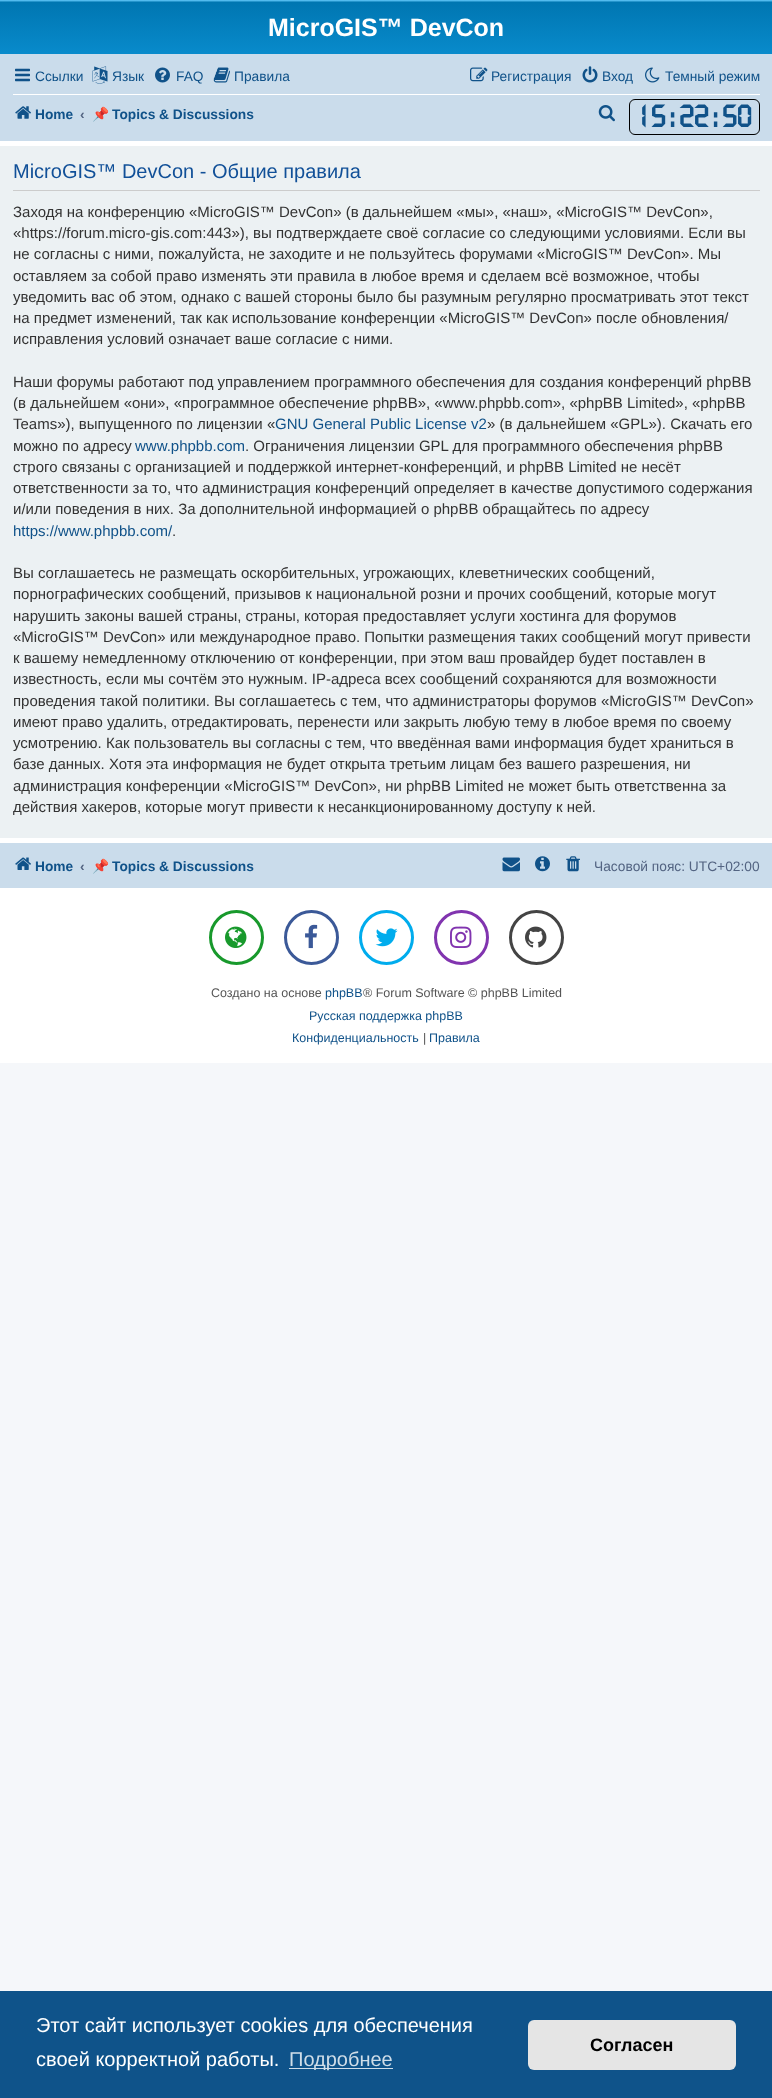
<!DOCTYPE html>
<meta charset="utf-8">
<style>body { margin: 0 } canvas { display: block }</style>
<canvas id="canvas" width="772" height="2098"></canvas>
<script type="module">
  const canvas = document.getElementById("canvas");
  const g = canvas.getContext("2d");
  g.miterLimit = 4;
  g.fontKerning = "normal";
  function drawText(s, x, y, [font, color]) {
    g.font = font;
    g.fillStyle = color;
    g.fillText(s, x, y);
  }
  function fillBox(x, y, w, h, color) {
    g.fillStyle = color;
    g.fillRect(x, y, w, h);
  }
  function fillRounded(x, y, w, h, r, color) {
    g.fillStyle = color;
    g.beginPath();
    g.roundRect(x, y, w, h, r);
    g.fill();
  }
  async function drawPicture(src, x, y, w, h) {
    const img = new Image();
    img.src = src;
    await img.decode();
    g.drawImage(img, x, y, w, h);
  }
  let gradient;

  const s1 = ["bold 25px Liberation Sans", "#FFFFFF"];
  const s2 = ["13.75px Liberation Sans", "#105289"];
  const s3 = ["bold 13.75px Liberation Sans", "#105289"];
  const s4 = ["bold 13.75px Liberation Sans", "#536482"];
  const s5 = ["bold 13.75px Noto Color Emoji", "#105289"];
  const s6 = ["bold 30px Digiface", "#105289"];
  const s7 = ["20px Liberation Sans", "#115098"];
  const s8 = ["15px Liberation Sans", "#333333"];
  const s9 = ["15px Liberation Sans", "#105289"];
  const s10 = ["13.75px Liberation Sans", "#536482"];
  const s11 = ["12.5px Liberation Sans", "#555555"];
  const s12 = ["12.5px Liberation Sans", "#105289"];
  const s13 = ["20px Liberation Sans", "#FFFFFF"];
  const s14 = ["20px Liberation Sans", "#CFDDE8"];
  const s15 = ["bold 18px Liberation Sans", "#000000"];

  fillBox(0, 0, 772, 2098, "#F5F7FA");
  fillBox(0, 141, 772, 922, "#FFFFFF");
  gradient = g.createLinearGradient(386, 0, 386, 115);
  gradient.addColorStop(0, "#6ACEFF");
  gradient.addColorStop(0.02, "#0076B1");
  gradient.addColorStop(1, "#12A3EB");
  g.fillStyle = gradient;
  g.fillRect(0, 0, 772, 54);
  drawText("MicroGIS™ DevCon", 268, 36, s1);
  fillBox(0, 54, 772, 87, "#CADCEB");
  await drawPicture("pic1.png", 15, 68, 15, 14);
  drawText("Ссылки", 35, 81, s2);
  await drawPicture("pic2.png", 92, 66, 16, 18);
  drawText("Язык", 112, 81, s2);
  await drawPicture("pic3.png", 155, 67, 15, 16);
  drawText("FAQ", 176, 81, s2);
  await drawPicture("pic4.png", 213, 67, 17, 16);
  drawText("Правила", 234, 81, s2);
  await drawPicture("pic5.png", 470, 67, 18, 15);
  drawText("Регистрация", 491, 81, s2);
  await drawPicture("pic6.png", 582, 66, 16, 17);
  drawText("Вход", 602, 81, s2);
  await drawPicture("pic7.png", 645, 67, 15, 16);
  drawText("Темный режим", 665, 81, s2);
  fillBox(13, 94, 747, 1, "#FFFFFF");
  await drawPicture("pic8.png", 15, 106, 16, 13);
  drawText("Home", 35, 119, s3);
  drawText("‹", 80, 119, s4);
  drawText("📌", 92, 119, s5);
  drawText("Topics & Discussions", 112, 119, s3);
  await drawPicture("pic9.png", 598, 105, 17, 17);
  g.beginPath();
  g.roundRect(629.5, 99.5, 130, 35, 5.5);
  g.strokeStyle = "#000000";
  g.stroke();
  drawText("15", 636, 127, s6);
  drawText(":", 670, 127, s6);
  drawText("22", 679, 127, s6);
  drawText(":", 713, 127, s6);
  drawText("50", 722, 127, s6);
  fillBox(0, 146, 772, 692, "#ECF1F3");
  fillBox(13, 190, 747, 1, "#CCCCCC");
  drawText("MicroGIS™ DevCon - Общие правила", 13, 178, s7);
  drawText("Заходя на конференцию «MicroGIS™ DevCon» (в дальнейшем «мы», «наш», «MicroGIS™ DevCon»,", 13, 217, s8);
  drawText("«https://forum.micro-gis.com:443»), вы подтверждаете своё согласие со следующими условиями. Если вы", 13, 238, s8);
  drawText("не согласны с ними, пожалуйста, не заходите и не пользуйтесь форумами «MicroGIS™ DevCon». Мы", 13, 259, s8);
  drawText("оставляем за собой право изменять эти правила в любое время и сделаем всё возможное, чтобы", 13, 281, s8);
  drawText("уведомить вас об этом, однако с вашей стороны было бы разумным регулярно просматривать этот текст", 13, 302, s8);
  drawText("на предмет изменений, так как использование конференции «MicroGIS™ DevCon» после обновления/", 13, 323, s8);
  drawText("исправления условий означает ваше согласие с ними.", 13, 344, s8);
  drawText("Наши форумы работают под управлением программного обеспечения для создания конференций phpBB", 13, 387, s8);
  drawText("(в дальнейшем «они», «программное обеспечение phpBB», «www.phpbb.com», «phpBB Limited», «phpBB", 13, 408, s8);
  drawText("Teams»), выпущенного по лицензии «", 13, 429, s8);
  drawText("GNU General Public License v2", 275, 429, s9);
  drawText("» (в дальнейшем «GPL»). Скачать его", 487, 429, s8);
  drawText("можно по адресу", 13, 451, s8);
  drawText("www.phpbb.com", 135, 451, s9);
  drawText(". Ограничения лицензии GPL для программного обеспечения phpBB", 245, 451, s8);
  drawText("строго связаны с организацией и поддержкой интернет-конференций, и phpBB Limited не несёт", 13, 472, s8);
  drawText("ответственности за то, что администрация конференций определяет в качестве допустимого содержания", 13, 493, s8);
  drawText("и/или поведения в них. За дополнительной информацией о phpBB обращайтесь по адресу", 13, 514, s8);
  drawText("https://www.phpbb.com/", 13, 536, s9);
  drawText(".", 172, 536, s8);
  drawText("Вы соглашаетесь не размещать оскорбительных, угрожающих, клеветнических сообщений,", 13, 578, s8);
  drawText("порнографических сообщений, призывов к национальной розни и прочих сообщений, которые могут", 13, 599, s8);
  drawText("нарушить законы вашей страны, страны, которая предоставляет услуги хостинга для форумов", 13, 621, s8);
  drawText("«MicroGIS™ DevCon» или международное право. Попытки размещения таких сообщений могут привести", 13, 642, s8);
  drawText("к вашему немедленному отключению от конференции, при этом ваш провайдер будет поставлен в", 13, 663, s8);
  drawText("известность, если мы сочтём это нужным. IP-адреса всех сообщений сохраняются для возможности", 13, 684, s8);
  drawText("проведения такой политики. Вы соглашаетесь с тем, что администраторы форумов «MicroGIS™ DevCon»", 13, 706, s8);
  drawText("имеют право удалить, отредактировать, перенести или закрыть любую тему в любое время по своему", 13, 727, s8);
  drawText("усмотрению. Как пользователь вы согласны с тем, что введённая вами информация будет храниться в", 13, 748, s8);
  drawText("базе данных. Хотя эта информация не будет открыта третьим лицам без вашего разрешения, ни", 13, 769, s8);
  drawText("администрация конференции «MicroGIS™ DevCon», ни phpBB Limited не может быть ответственна за", 13, 791, s8);
  g.save();
  g.beginPath();
  g.rect(13, 153, 747, 678);
  g.clip();
  drawText("действия хакеров, которые могут привести к несанкционированному доступу к ней.", 13, 812, s8);
  g.restore();
  fillBox(0, 843, 772, 45, "#CADCEB");
  await drawPicture("pic10.png", 15, 857, 16, 13);
  drawText("Home", 35, 871, s3);
  drawText("‹", 80, 871, s4);
  drawText("📌", 92, 871, s5);
  drawText("Topics & Discussions", 112, 871, s3);
  await drawPicture("pic11.png", 502, 857, 18, 15);
  await drawPicture("pic12.png", 535, 856, 15, 16);
  await drawPicture("pic13.png", 566, 856, 14, 16);
  drawText("Часовой пояс: UTC+02:00", 594, 871, s10);
  g.beginPath();
  g.arc(236.5, 937.5, 26, 0, Math.PI * 2);
  g.strokeStyle = "#18992C";
  g.lineWidth = 3;
  g.stroke();
  await drawPicture("pic14.png", 225, 926, 22, 22);
  g.beginPath();
  g.arc(311.5, 937.5, 26, 0, Math.PI * 2);
  g.strokeStyle = "#3B5998";
  g.stroke();
  await drawPicture("pic15.png", 305, 924, 13, 25);
  g.beginPath();
  g.arc(386.5, 937.5, 26, 0, Math.PI * 2);
  g.strokeStyle = "#00ACED";
  g.stroke();
  await drawPicture("pic16.png", 375, 928, 23, 19);
  g.beginPath();
  g.arc(461.5, 937.5, 26, 0, Math.PI * 2);
  g.strokeStyle = "#8134AF";
  g.stroke();
  await drawPicture("pic17.png", 450, 926, 22, 22);
  g.beginPath();
  g.arc(536.5, 937.5, 26, 0, Math.PI * 2);
  g.strokeStyle = "#444444";
  g.stroke();
  await drawPicture("pic18.png", 525, 926, 22, 22);
  drawText("Создано на основе", 211, 997, s11);
  drawText("phpBB", 325, 997, s12);
  drawText("® Forum Software © phpBB Limited", 363, 997, s11);
  drawText("Русская поддержка phpBB", 309, 1020, s12);
  drawText("Конфиденциальность", 292, 1042, s12);
  drawText("|", 423, 1042, s11);
  drawText("Правила", 429, 1042, s12);
  fillBox(0, 1991, 772, 107, "#0F538A");
  drawText("Этот сайт использует cookies для обеспечения", 36, 2032, s13);
  drawText("своей корректной работы.", 36, 2066, s13);
  fillBox(289, 2068, 104, 1, "#CFDDE8");
  drawText("Подробнее", 289, 2066, s14);
  fillRounded(528, 2020, 208, 50, 6, "#E5E5E5");
  drawText("Согласен", 590, 2051, s15);
</script>
